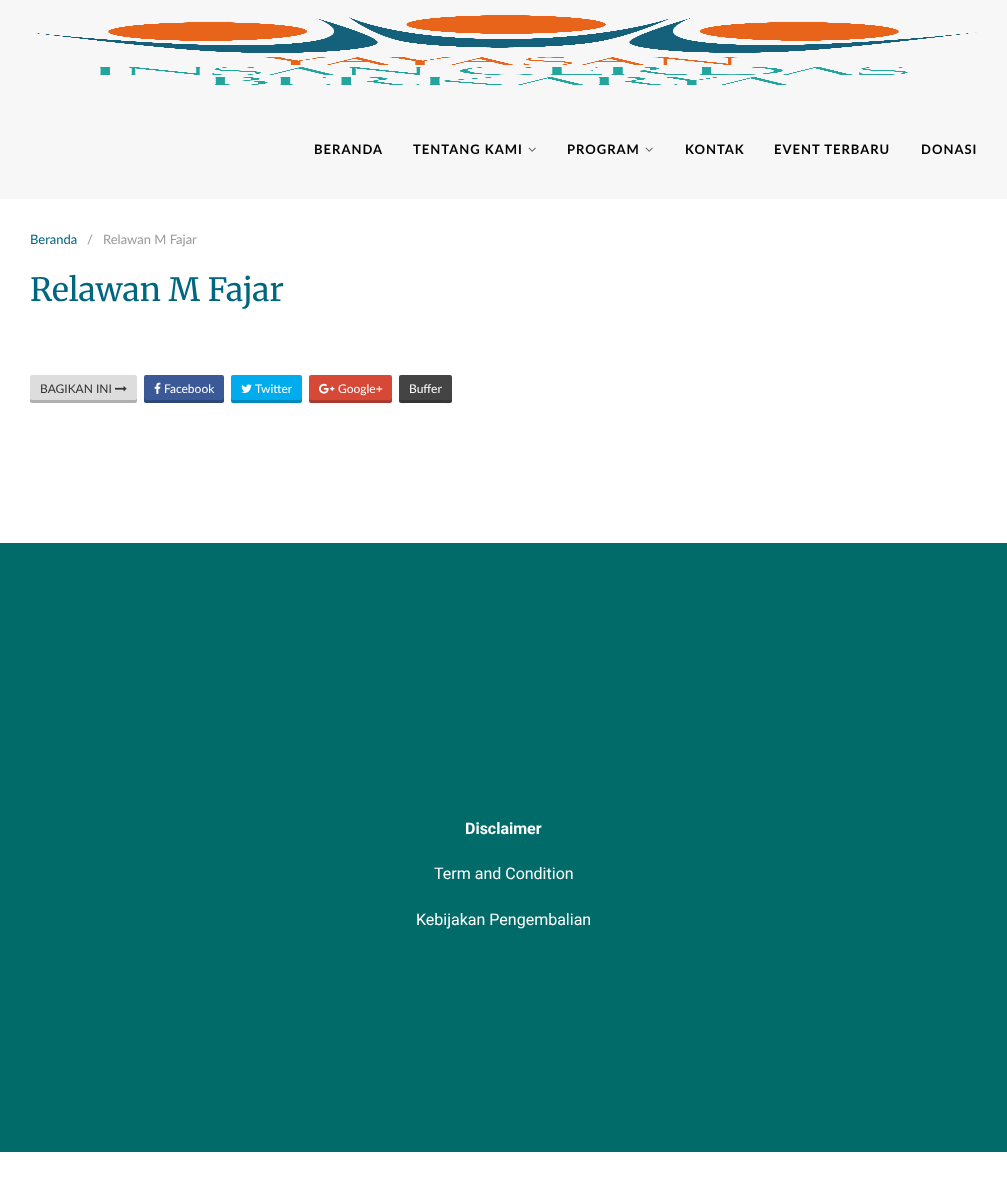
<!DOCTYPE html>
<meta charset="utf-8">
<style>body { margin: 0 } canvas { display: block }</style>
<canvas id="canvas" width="1007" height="1190"></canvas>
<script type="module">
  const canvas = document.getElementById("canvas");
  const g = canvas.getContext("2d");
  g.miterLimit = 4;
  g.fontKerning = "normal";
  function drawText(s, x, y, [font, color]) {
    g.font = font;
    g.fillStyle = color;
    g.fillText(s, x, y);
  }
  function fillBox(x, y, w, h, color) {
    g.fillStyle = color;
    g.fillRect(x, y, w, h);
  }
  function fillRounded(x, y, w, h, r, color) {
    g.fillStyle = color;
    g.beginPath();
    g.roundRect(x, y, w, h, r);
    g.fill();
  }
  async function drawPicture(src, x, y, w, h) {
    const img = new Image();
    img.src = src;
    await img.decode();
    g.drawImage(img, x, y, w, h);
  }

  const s1 = ["bold 13px Lato", "#000000"];
  const s2 = ["13px Lato", "#00657F"];
  const s3 = ["13px Lato", "#999999"];
  const s4 = ["32px Merriweather", "#00657F"];
  const s5 = ["12px Lato", "#333333"];
  const s6 = ["12px Lato", "#FFFFFF"];
  const s7 = ["bold 16px Roboto", "#FFFFFF"];
  const s8 = ["16px Roboto", "#FFFFFF"];

  fillBox(0, 0, 1007, 1190, "#FFFFFF");
  fillBox(0, 0, 1007, 199, "#F7F7F7");
  await drawPicture("pic1.png", 30, 15, 947, 70);
  g.letterSpacing = "1px";
  drawText("BERANDA", 314, 154, s1);
  drawText("TENTANG KAMI", 413, 154, s1);
  await drawPicture("pic2.png", 528, 147, 8, 5);
  drawText("PROGRAM", 567, 154, s1);
  await drawPicture("pic2.png", 645, 147, 8, 5);
  drawText("KONTAK", 685, 154, s1);
  drawText("EVENT TERBARU", 774, 154, s1);
  drawText("DONASI", 921, 154, s1);
  g.letterSpacing = "0px";
  drawText("Beranda", 30, 244, s2);
  drawText("/", 87, 244, s3);
  drawText("Relawan M Fajar", 103, 244, s3);
  drawText("Relawan M Fajar", 30, 301, s4);
  fillRounded(30, 375, 107, 28, 2, "#DDDDDD");
  g.fillStyle = "rgba(0, 0, 0, 0.2)";
  g.beginPath();
  g.moveTo(30, 398);
  g.lineTo(30, 401);
  g.bezierCurveTo(30, 402, 31, 403, 32, 403);
  g.lineTo(135, 403);
  g.bezierCurveTo(136, 403, 137, 402, 137, 401);
  g.lineTo(137, 398);
  g.bezierCurveTo(137, 399, 136, 400, 135, 400);
  g.lineTo(32, 400);
  g.bezierCurveTo(31, 400, 30, 399, 30, 398);
  g.closePath();
  g.fill();
  drawText("BAGIKAN INI", 40, 393, s5);
  await drawPicture("pic3.png", 115, 386, 12, 6);
  fillRounded(144, 375, 80, 28, 2, "#3B5997");
  g.fillStyle = "rgba(0, 0, 0, 0.2)";
  g.beginPath();
  g.moveTo(144, 398);
  g.lineTo(144, 401);
  g.bezierCurveTo(144, 402, 145, 403, 146, 403);
  g.lineTo(222, 403);
  g.bezierCurveTo(223, 403, 224, 402, 224, 401);
  g.lineTo(224, 398);
  g.bezierCurveTo(224, 399, 223, 400, 222, 400);
  g.lineTo(146, 400);
  g.bezierCurveTo(145, 400, 144, 399, 144, 398);
  g.closePath();
  g.fill();
  await drawPicture("pic4.png", 154, 382, 7, 12);
  drawText("Facebook", 164, 393, s6);
  fillRounded(231, 375, 71, 28, 2, "#00ACED");
  g.fillStyle = "rgba(0, 0, 0, 0.2)";
  g.beginPath();
  g.moveTo(231, 398);
  g.bezierCurveTo(231, 406, 234, 403, 244, 403);
  g.lineTo(289, 403);
  g.bezierCurveTo(299, 403, 302, 406, 302, 398);
  g.bezierCurveTo(302, 399, 301, 400, 300, 400);
  g.lineTo(233, 400);
  g.bezierCurveTo(232, 400, 231, 399, 231, 398);
  g.closePath();
  g.fill();
  await drawPicture("pic5.png", 241, 384, 11, 9);
  drawText("Twitter", 255, 393, s6);
  fillRounded(309, 375, 83, 28, 2, "#D64937");
  g.fillStyle = "rgba(0, 0, 0, 0.2)";
  g.beginPath();
  g.moveTo(309, 398);
  g.lineTo(309, 401);
  g.bezierCurveTo(309, 402, 310, 403, 311, 403);
  g.lineTo(390, 403);
  g.bezierCurveTo(391, 403, 392, 402, 392, 401);
  g.lineTo(392, 398);
  g.bezierCurveTo(392, 399, 391, 400, 390, 400);
  g.lineTo(311, 400);
  g.bezierCurveTo(310, 400, 309, 399, 309, 398);
  g.closePath();
  g.fill();
  await drawPicture("pic6.png", 319, 383, 16, 11);
  drawText("Google+", 338, 393, s6);
  fillRounded(399, 375, 53, 28, 2, "#444444");
  g.fillStyle = "rgba(0, 0, 0, 0.2)";
  g.beginPath();
  g.moveTo(399, 398);
  g.bezierCurveTo(399, 405, 401, 403, 409, 403);
  g.lineTo(442, 403);
  g.bezierCurveTo(450, 403, 452, 405, 452, 398);
  g.lineTo(451, 400);
  g.lineTo(400, 400);
  g.closePath();
  g.fill();
  drawText("Buffer", 409, 393, s6);
  fillBox(0, 543, 1007, 609, "#006B68");
  drawText("Disclaimer", 465, 834, s7);
  drawText("Term and Condition", 434, 879, s8);
  drawText("Kebijakan Pengembalian", 416, 925, s8);
</script>
